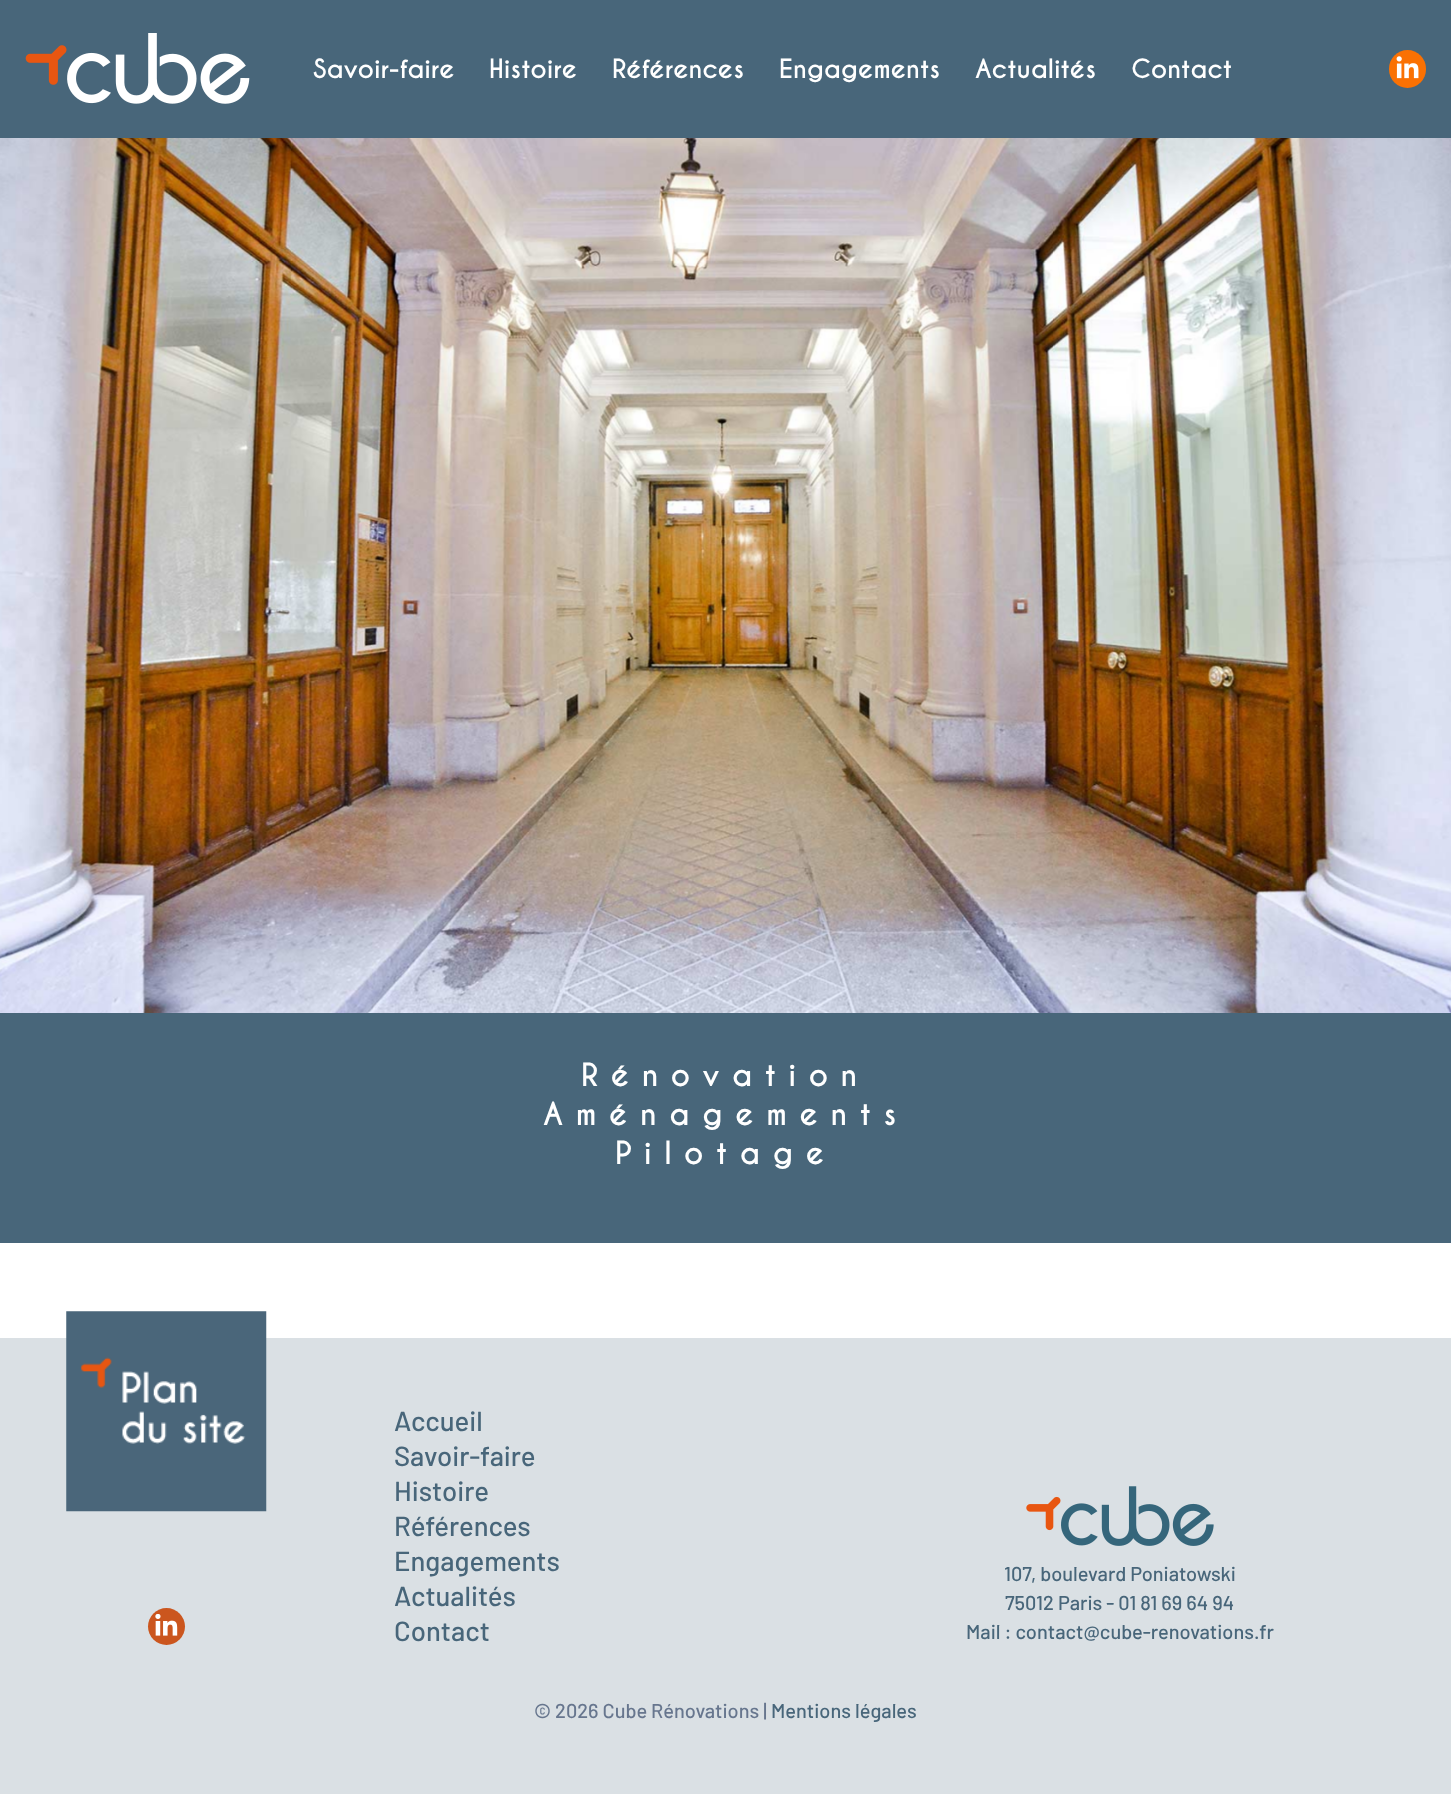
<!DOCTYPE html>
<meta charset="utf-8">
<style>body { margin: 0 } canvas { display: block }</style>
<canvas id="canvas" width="1451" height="1794"></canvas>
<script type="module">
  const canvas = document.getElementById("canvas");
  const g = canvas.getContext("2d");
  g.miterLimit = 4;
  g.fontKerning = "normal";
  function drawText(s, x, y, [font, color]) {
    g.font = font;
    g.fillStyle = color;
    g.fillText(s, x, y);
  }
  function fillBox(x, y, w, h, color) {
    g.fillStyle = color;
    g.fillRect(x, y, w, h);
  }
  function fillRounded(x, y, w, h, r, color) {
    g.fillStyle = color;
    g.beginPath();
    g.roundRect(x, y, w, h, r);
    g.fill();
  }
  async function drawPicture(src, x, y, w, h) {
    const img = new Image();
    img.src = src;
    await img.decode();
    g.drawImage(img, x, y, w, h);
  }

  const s1 = ["bold 25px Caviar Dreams", "#FFFFFF"];
  const s2 = ["bold 30px Caviar Dreams", "#FFFFFF"];
  const s3 = ["500 27.5px Barlow", "#48667A"];
  const s4 = ["500 20px Barlow", "#48667A"];
  const s5 = ["500 20px Barlow", "#67768E"];

  fillBox(0, 0, 1451, 1794, "#FFFFFF");
  fillBox(0, 0, 1451, 138, "#48667A");
  await drawPicture("pic1.png", 25, 33, 225, 71);
  drawText("Savoir-faire", 313, 78, s1);
  drawText("Histoire", 489, 78, s1);
  drawText("Références", 612, 78, s1);
  drawText("Engagements", 779, 78, s1);
  drawText("Actualités", 975, 78, s1);
  drawText("Contact", 1131, 78, s1);
  fillRounded(1389, 50, 37, 38, 18.5, "#FA7103");
  await drawPicture("pic2.png", 1396, 56, 23, 23);
  await drawPicture("pic3.png", 0, 138, 1451, 875);
  fillBox(0, 1013, 1451, 230, "#48667A");
  g.letterSpacing = "12.5px";
  drawText("Rénovation", 581, 1086, s2);
  drawText("Aménagements", 543, 1125, s2);
  drawText("Pilotage", 615, 1164, s2);
  fillBox(0, 1338, 1451, 456, "#DAE0E4");
  await drawPicture("pic4.png", 66, 1311, 201, 201);
  g.fillStyle = "#CB561E";
  g.beginPath();
  g.arc(166.5, 1626.5, 18.5, 0, Math.PI * 2);
  g.fill();
  await drawPicture("pic5.png", 155, 1614, 23, 22);
  g.letterSpacing = "0px";
  drawText("Accueil", 394, 1431, s3);
  drawText("Savoir-faire", 394, 1466, s3);
  drawText("Histoire", 394, 1501, s3);
  drawText("Références", 394, 1536, s3);
  drawText("Engagements", 394, 1571, s3);
  drawText("Actualités", 394, 1606, s3);
  drawText("Contact", 394, 1641, s3);
  await drawPicture("pic6.png", 1026, 1486, 188, 60);
  drawText("107, boulevard Poniatowski", 1004, 1581, s4);
  drawText("75012 Paris - 01 81 69 64 94", 1005, 1610, s4);
  drawText("Mail : contact@cube-renovations.fr", 966, 1639, s4);
  drawText("© 2026 Cube Rénovations |", 534, 1718, s5);
  drawText("Mentions légales", 771, 1718, s4);
</script>
